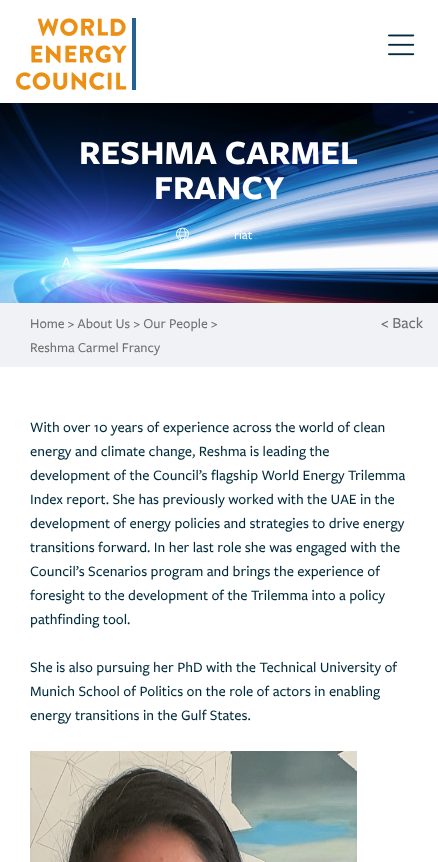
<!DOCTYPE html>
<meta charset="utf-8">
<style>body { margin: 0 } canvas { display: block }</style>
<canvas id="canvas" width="438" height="862"></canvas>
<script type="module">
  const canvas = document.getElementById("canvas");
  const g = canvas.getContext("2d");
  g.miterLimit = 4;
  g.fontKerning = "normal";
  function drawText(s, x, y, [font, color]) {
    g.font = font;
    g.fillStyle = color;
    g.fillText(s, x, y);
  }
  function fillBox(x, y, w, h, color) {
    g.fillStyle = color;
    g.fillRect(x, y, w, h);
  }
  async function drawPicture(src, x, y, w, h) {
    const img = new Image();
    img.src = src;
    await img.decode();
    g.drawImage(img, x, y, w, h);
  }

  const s1 = ["bold 35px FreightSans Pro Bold", "#FFFFFF"];
  const s2 = ["500 13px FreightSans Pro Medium", "#FFFFFF"];
  const s3 = ["500 15px FreightSans Pro Medium", "#FFFFFF"];
  const s4 = ["500 14px FreightSans Pro Medium", "#706F6F"];
  const s5 = ["500 16px FreightSans Pro Medium", "#706F6F"];
  const s6 = ["500 15px FreightSans Pro Medium", "#002B3B"];

  fillBox(0, 0, 438, 862, "#FFFFFF");
  await drawPicture("pic1.png", 16, 18, 120, 72);
  await drawPicture("pic2.png", 388, 34, 27, 22);
  await drawPicture("pic3.png", 0, 103, 438, 200);
  drawText("RESHMA CARMEL", 79, 164, s1);
  drawText("FRANCY", 154, 199, s1);
  await drawPicture("pic4.png", 176, 227, 13, 14);
  drawText("riat", 234, 239, s2);
  drawText("A", 62, 267, s3);
  fillBox(0, 303, 438, 64, "#F0F2F6");
  drawText("Home > About Us > Our People >", 30, 328, s4);
  drawText("Reshma Carmel Francy", 30, 352, s4);
  drawText("< Back", 381, 328, s5);
  drawText("With over 10 years of experience across the world of clean", 30, 432, s6);
  drawText("energy and climate change, Reshma is leading the", 30, 456, s6);
  drawText("development of the Council’s flagship World Energy Trilemma", 30, 480, s6);
  drawText("Index report. She has previously worked with the UAE in the", 30, 504, s6);
  drawText("development of energy policies and strategies to drive energy", 30, 528, s6);
  drawText("transitions forward. In her last role she was engaged with the", 30, 552, s6);
  drawText("Council’s Scenarios program and brings the experience of", 30, 576, s6);
  drawText("foresight to the development of the Trilemma into a policy", 30, 600, s6);
  drawText("pathfinding tool.", 30, 624, s6);
  drawText("She is also pursuing her PhD with the Technical University of", 30, 672, s6);
  drawText("Munich School of Politics on the role of actors in enabling", 30, 696, s6);
  drawText("energy transitions in the Gulf States.", 30, 720, s6);
  await drawPicture("pic5.png", 30, 751, 327, 111);
</script>
